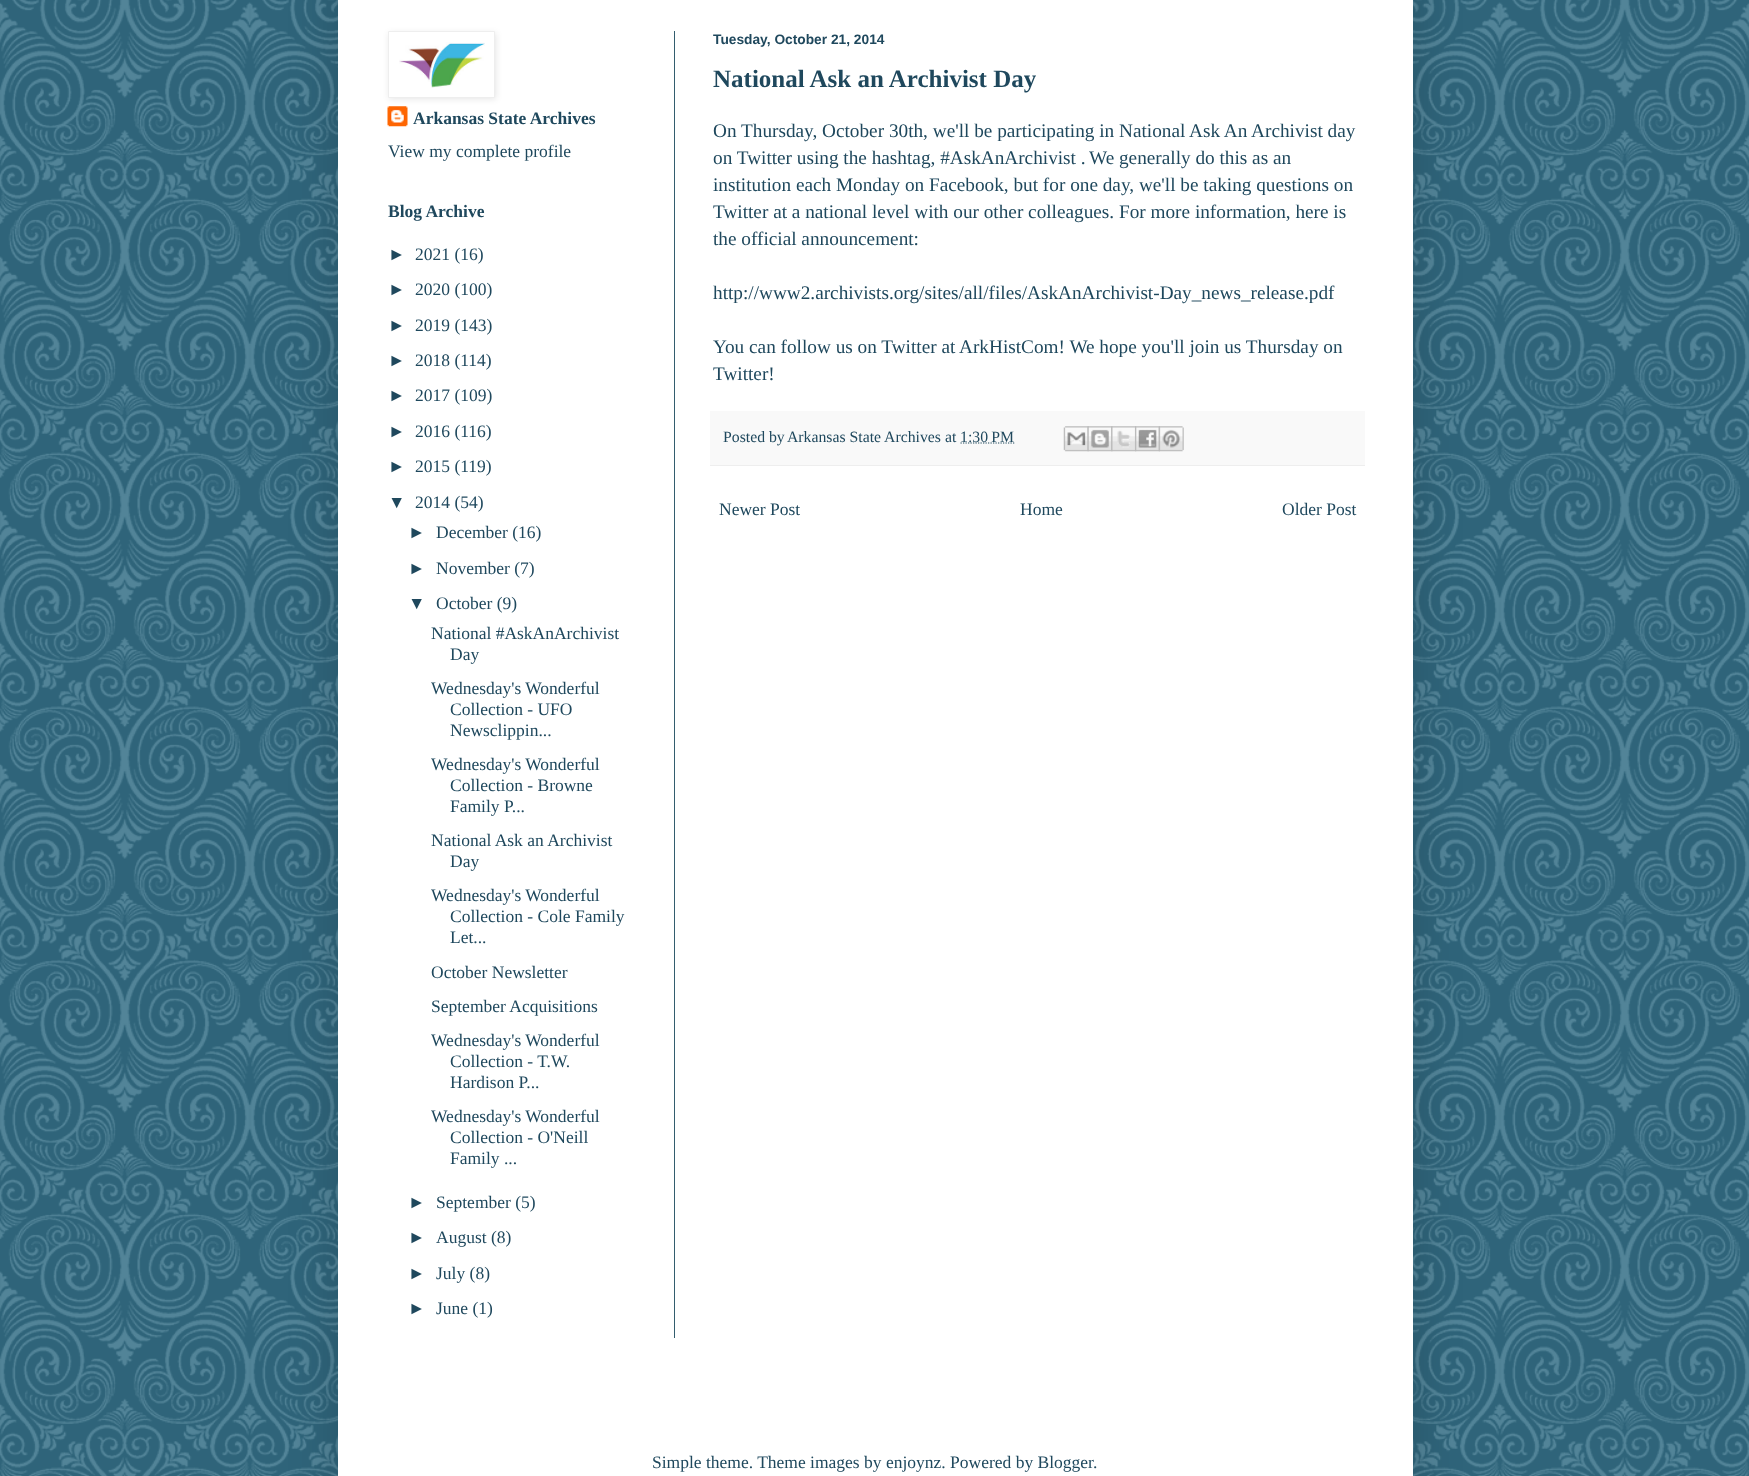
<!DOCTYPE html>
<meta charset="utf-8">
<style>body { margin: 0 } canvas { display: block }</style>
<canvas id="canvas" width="1749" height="1476"></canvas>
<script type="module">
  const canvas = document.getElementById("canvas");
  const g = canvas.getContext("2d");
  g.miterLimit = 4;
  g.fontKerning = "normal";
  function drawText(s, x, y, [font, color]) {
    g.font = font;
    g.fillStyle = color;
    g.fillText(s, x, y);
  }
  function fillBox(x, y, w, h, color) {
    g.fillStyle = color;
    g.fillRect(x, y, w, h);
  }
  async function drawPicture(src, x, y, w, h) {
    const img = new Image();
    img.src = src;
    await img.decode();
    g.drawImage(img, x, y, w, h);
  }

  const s1 = ["bold 17.5px Liberation Serif", "#1F485D"];
  const s2 = ["17.5px Liberation Serif", "#1F485D"];
  const s3 = ["17.5px Liberation Sans", "#1F485D"];
  const s4 = ["bold 13.75px Liberation Sans", "#1F485D"];
  const s5 = ["bold 25px Liberation Serif", "#1F485D"];
  const s6 = ["19.25px Liberation Serif", "#1F485D"];
  const s7 = ["15.75px Liberation Serif", "#1F485D"];

  fillBox(0, 0, 1749, 1476, "#3B7E99");
  await drawPicture("pic1.png", 0, 0, 1749, 1476);
  g.fillStyle = "rgba(0, 0, 0, 0.15)";
  g.filter = "blur(25px)";
  g.beginPath();
  g.rect(338, -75, 1075, 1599);
  g.fill();
  g.filter = "none";
  fillBox(338, 0, 1075, 1476, "#FFFFFF");
  fillBox(674, 31, 1, 1307, "#335D6E");
  await drawPicture("pic3.png", 387, 106, 21, 21);
  g.fillStyle = "rgba(0, 0, 0, 0.1)";
  g.filter = "blur(3px)";
  g.beginPath();
  g.rect(389, 33, 107, 66);
  g.fill();
  g.filter = "none";
  g.fillStyle = "#FFFFFF";
  g.beginPath();
  g.rect(388.5, 31.5, 106, 66);
  g.fill();
  g.strokeStyle = "#EEEEEE";
  g.stroke();
  await drawPicture("pic2.png", 399, 42, 86, 46);
  drawText("Arkansas State Archives", 413, 124, s1);
  drawText("View my complete profile", 388, 157, s2);
  drawText("Blog Archive", 388, 217, s1);
  drawText("►", 388, 260, s3);
  drawText("2021 (16)", 415, 260, s2);
  drawText("►", 388, 295, s3);
  drawText("2020 (100)", 415, 295, s2);
  drawText("►", 388, 331, s3);
  drawText("2019 (143)", 415, 331, s2);
  drawText("►", 388, 366, s3);
  drawText("2018 (114)", 415, 366, s2);
  drawText("►", 388, 401, s3);
  drawText("2017 (109)", 415, 401, s2);
  drawText("►", 388, 437, s3);
  drawText("2016 (116)", 415, 437, s2);
  drawText("►", 388, 472, s3);
  drawText("2015 (119)", 415, 472, s2);
  drawText("▼", 388, 508, s3);
  drawText("2014 (54)", 415, 508, s2);
  drawText("►", 408, 538, s3);
  drawText("December (16)", 436, 538, s2);
  drawText("►", 408, 574, s3);
  drawText("November (7)", 436, 574, s2);
  drawText("▼", 408, 609, s3);
  drawText("October (9)", 436, 609, s2);
  drawText("National #AskAnArchivist", 431, 639, s2);
  drawText("Day", 450, 660, s2);
  drawText("Wednesday's Wonderful", 431, 694, s2);
  drawText("Collection - UFO", 450, 715, s2);
  drawText("Newsclippin...", 450, 736, s2);
  drawText("Wednesday's Wonderful", 431, 770, s2);
  drawText("Collection - Browne", 450, 791, s2);
  drawText("Family P...", 450, 812, s2);
  drawText("National Ask an Archivist", 431, 846, s2);
  drawText("Day", 450, 867, s2);
  drawText("Wednesday's Wonderful", 431, 901, s2);
  drawText("Collection - Cole Family", 450, 922, s2);
  drawText("Let...", 450, 943, s2);
  drawText("October Newsletter", 431, 978, s2);
  drawText("September Acquisitions", 431, 1012, s2);
  drawText("Wednesday's Wonderful", 431, 1046, s2);
  drawText("Collection - T.W.", 450, 1067, s2);
  drawText("Hardison P...", 450, 1088, s2);
  drawText("Wednesday's Wonderful", 431, 1122, s2);
  drawText("Collection - O'Neill", 450, 1143, s2);
  drawText("Family ...", 450, 1164, s2);
  drawText("►", 408, 1208, s3);
  drawText("September (5)", 436, 1208, s2);
  drawText("►", 408, 1243, s3);
  drawText("August (8)", 436, 1243, s2);
  drawText("►", 408, 1279, s3);
  drawText("July (8)", 436, 1279, s2);
  drawText("►", 408, 1314, s3);
  drawText("June (1)", 436, 1314, s2);
  drawText("Tuesday, October 21, 2014", 713, 44, s4);
  drawText("National Ask an Archivist Day", 713, 87, s5);
  drawText("On Thursday, October 30th, we'll be participating in National Ask An Archivist day", 713, 137, s6);
  drawText("on Twitter using the hashtag, #AskAnArchivist .", 713, 164, s6);
  drawText("We generally do this as an", 1089, 164, s6);
  drawText("institution each Monday on Facebook, but for one day, we'll be taking questions on", 713, 191, s6);
  drawText("Twitter at a national level with our other colleagues. For more information, here is", 713, 218, s6);
  drawText("the official announcement:", 713, 245, s6);
  drawText("http://www2.archivists.org/sites/all/files/AskAnArchivist-Day_news_release.pdf", 713, 299, s6);
  drawText("You can follow us on Twitter at ArkHistCom! We hope you'll join us Thursday on", 713, 353, s6);
  drawText("Twitter!", 713, 380, s6);
  fillBox(710, 411, 655, 54, "#F9F9F9");
  fillBox(710, 465, 655, 1, "#EEEEEE");
  drawText("Posted by", 723, 442, s7);
  drawText("Arkansas State Archives at", 787, 442, s7);
  g.beginPath();
  g.moveTo(960.5, 443);
  g.lineTo(1014.5, 443);
  g.strokeStyle = "#1F485D";
  g.lineWidth = 1.2;
  g.setLineDash([1.25, 1.25]);
  g.stroke();
  drawText("1:30 PM", 960, 442, s7);
  await drawPicture("pic4.png", 1063, 426, 26, 26);
  await drawPicture("pic5.png", 1087, 426, 26, 26);
  await drawPicture("pic6.png", 1111, 426, 26, 26);
  await drawPicture("pic7.png", 1135, 426, 25, 26);
  await drawPicture("pic8.png", 1158, 426, 26, 26);
  drawText("Newer Post", 719, 515, s2);
  drawText("Home", 1020, 515, s2);
  drawText("Older Post", 1282, 515, s2);
  drawText("Simple theme. Theme images by enjoynz. Powered by Blogger", 652, 1468, s2);
  drawText(".", 1093, 1468, s2);
</script>
